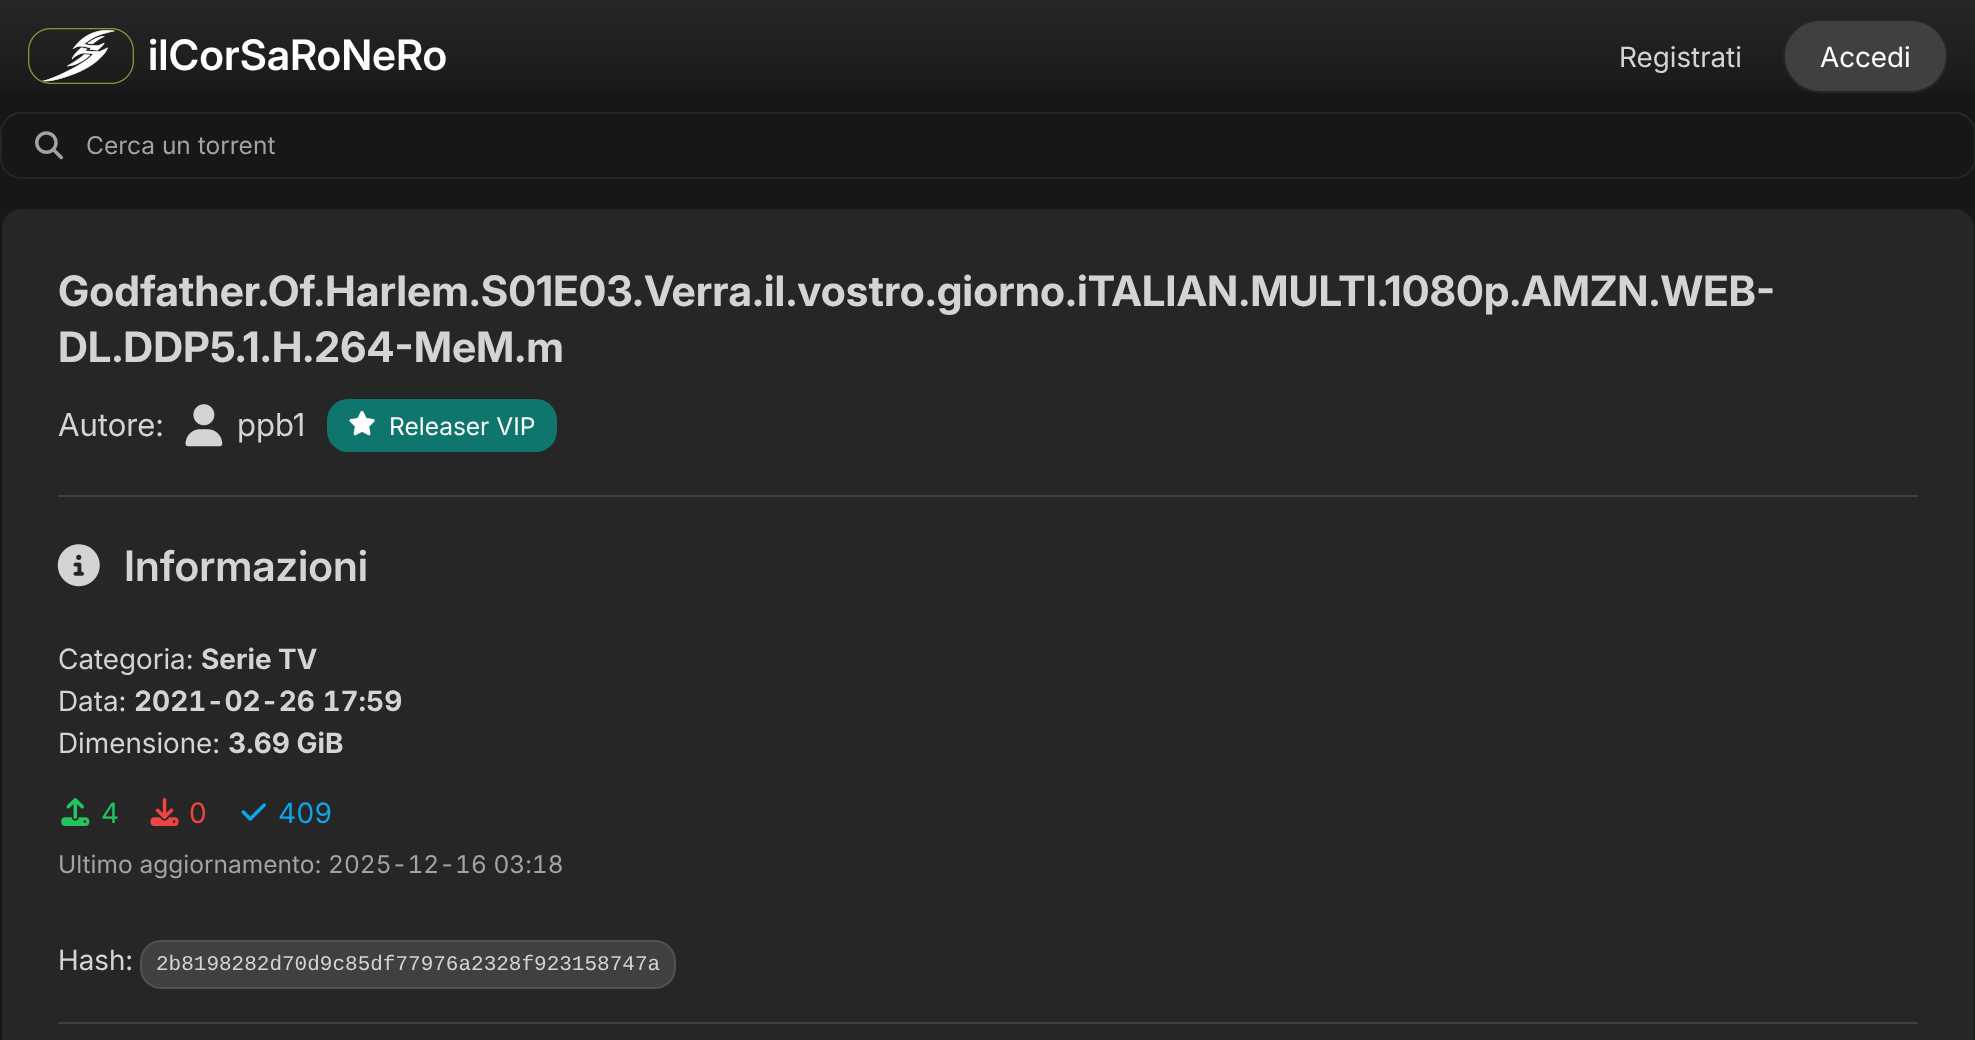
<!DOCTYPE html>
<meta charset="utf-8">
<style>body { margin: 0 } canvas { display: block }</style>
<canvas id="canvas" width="1975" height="1040"></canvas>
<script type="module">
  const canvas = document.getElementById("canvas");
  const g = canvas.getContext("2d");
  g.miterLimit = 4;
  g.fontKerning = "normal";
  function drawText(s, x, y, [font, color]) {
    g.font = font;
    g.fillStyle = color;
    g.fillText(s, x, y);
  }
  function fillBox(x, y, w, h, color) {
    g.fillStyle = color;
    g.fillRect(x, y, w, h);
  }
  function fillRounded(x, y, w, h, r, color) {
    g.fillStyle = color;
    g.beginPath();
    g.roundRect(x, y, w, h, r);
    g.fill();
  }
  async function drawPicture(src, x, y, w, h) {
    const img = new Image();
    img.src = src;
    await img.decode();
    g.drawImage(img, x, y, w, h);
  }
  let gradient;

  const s1 = ["600 42px Inter", "#FFFFFF"];
  const s2 = ["28px Inter", "#D4D4D4"];
  const s3 = ["28px Inter", "#FFFFFF"];
  const s4 = ["24.5px 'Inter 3'", "#A3A3A3"];
  const s5 = ["bold 42px Inter", "#D4D4D4"];
  const s6 = ["31.5px 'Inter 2'", "#D4D4D4"];
  const s7 = ["24.5px 'Inter 3'", "#FFFFFF"];
  const s8 = ["600 42px Inter", "#D4D4D4"];
  const s9 = ["bold 28px 'Inter 2'", "#D4D4D4"];
  const s10 = ["bold 28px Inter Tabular", "#D4D4D4"];
  const s11 = ["28px Inter", "#22C55E"];
  const s12 = ["28px Inter", "#EF4444"];
  const s13 = ["28px Inter Tabular", "#0EA5E9"];
  const s14 = ["24.5px 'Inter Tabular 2'", "#A3A3A3"];
  const s15 = ["21px Liberation Mono", "#D4D4D4"];

  fillBox(0, 0, 1975, 1040, "#171717");
  gradient = g.createLinearGradient(988, 0, 988, 112);
  gradient.addColorStop(0, "#262626");
  gradient.addColorStop(1, "#171717");
  g.fillStyle = gradient;
  g.fillRect(0, 0, 1975, 93);
  await drawPicture("pic1.png", 28, 28, 106, 56);
  drawText("ilCorSaRoNeRo", 148, 70, s1);
  drawText("Registrati", 1619, 67, s2);
  g.fillStyle = "#404040";
  g.beginPath();
  g.roundRect(1784, 20, 163, 72, 36);
  g.fill();
  g.strokeStyle = "#262626";
  g.lineWidth = 2;
  g.stroke();
  drawText("Accedi", 1820, 67, s3);
  g.beginPath();
  g.roundRect(1, 113, 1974, 65, 20);
  g.stroke();
  await drawPicture("pic2.png", 35, 131, 28, 29);
  drawText("Cerca un torrent", 86, 154, s4);
  g.fillStyle = "#262626";
  g.beginPath();
  g.roundRect(1, 208, 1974, 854, 20);
  g.fill();
  g.strokeStyle = "#171717";
  g.stroke();
  drawText("Godfather.Of.Harlem.S01E03.Verra.il.vostro.giorno.iTALIAN.MULTI.1080p.AMZN.WEB-", 58, 306, s5);
  drawText("DL.DDP5.1.H.264-MeM.m", 58, 362, s5);
  drawText("Autore:", 58, 436, s6);
  await drawPicture("pic3.png", 185, 404, 38, 43);
  drawText("ppb1", 237, 436, s6);
  fillRounded(327, 399, 230, 53, 21, "#0F766E");
  await drawPicture("pic4.png", 349, 410, 26, 26);
  drawText("Releaser VIP", 389, 435, s7);
  fillBox(58, 495, 1860, 2, "#404040");
  await drawPicture("pic5.png", 57, 544, 43, 43);
  drawText("Informazioni", 124, 581, s8);
  drawText("Categoria:", 58, 669, s2);
  drawText("Serie TV", 201, 669, s9);
  drawText("Data:", 58, 711, s2);
  drawText("2021-02-26 17:59", 134, 711, s10);
  drawText("Dimensione:", 58, 753, s2);
  drawText("3.69 GiB", 228, 753, s9);
  await drawPicture("pic6.png", 61, 798, 29, 28);
  drawText("4", 101, 823, s11);
  await drawPicture("pic7.png", 150, 798, 29, 28);
  drawText("0", 189, 823, s12);
  await drawPicture("pic8.png", 241, 803, 25, 18);
  drawText("409", 278, 823, s13);
  drawText("Ultimo aggiornamento:", 58, 873, s4);
  drawText("2025-12-16 03:18", 328, 873, s14);
  drawText("Hash:", 58, 970, s2);
  g.fillStyle = "#404040";
  g.beginPath();
  g.roundRect(141, 941, 534, 47, 20);
  g.fill();
  g.strokeStyle = "#525252";
  g.stroke();
  drawText("2b8198282d70d9c85df77976a2328f923158747a", 156, 970, s15);
  fillBox(58, 1022, 1860, 2, "#404040");
</script>
